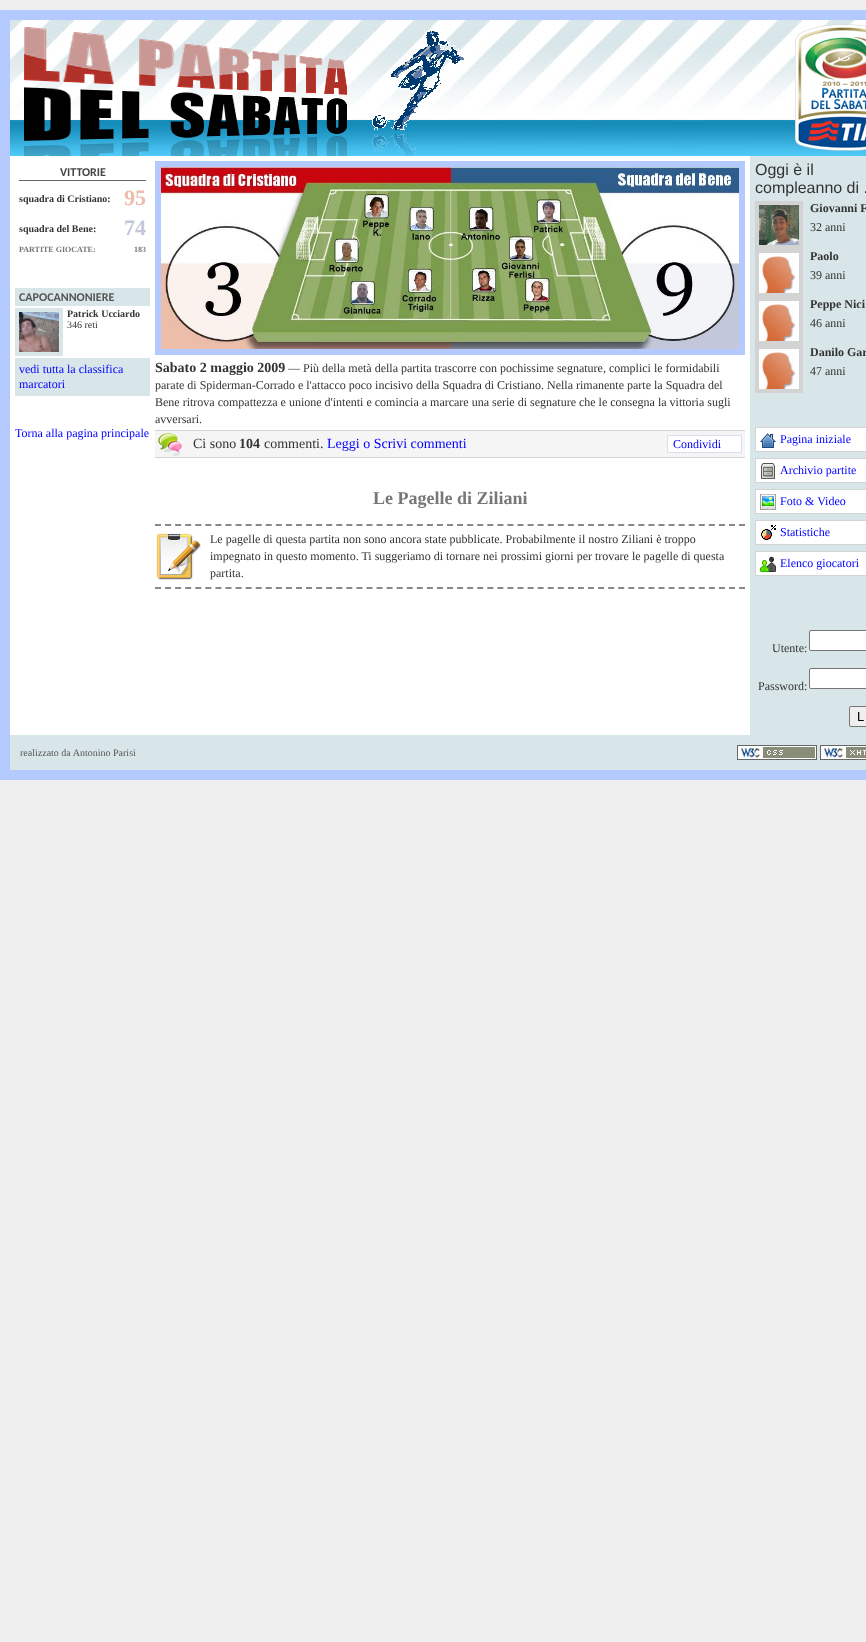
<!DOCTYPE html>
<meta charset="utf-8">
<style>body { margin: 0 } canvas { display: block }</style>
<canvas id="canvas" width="866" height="1642"></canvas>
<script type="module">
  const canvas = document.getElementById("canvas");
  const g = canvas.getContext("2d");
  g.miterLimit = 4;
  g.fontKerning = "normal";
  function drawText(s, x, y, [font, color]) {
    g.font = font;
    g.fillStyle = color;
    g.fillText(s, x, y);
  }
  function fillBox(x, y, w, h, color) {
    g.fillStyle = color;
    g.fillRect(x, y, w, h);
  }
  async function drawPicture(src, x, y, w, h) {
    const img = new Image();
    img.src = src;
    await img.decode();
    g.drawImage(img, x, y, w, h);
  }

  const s1 = ["bold 12px Carlito", "#444444"];
  const s2 = ["bold 10px Liberation Serif", "#333333"];
  const s3 = ["bold 22px Liberation Serif", "#ECBDA9"];
  const s4 = ["bold 22px Liberation Serif", "#C2C7DA"];
  const s5 = ["bold 8px Liberation Serif", "#777777"];
  const s6 = ["bold 12px Carlito", "#555555"];
  const s7 = ["10px Liberation Serif", "#333333"];
  const s8 = ["12px Liberation Serif", "#0000FF"];
  const s9 = ["bold 14px Liberation Serif", "#333333"];
  const s10 = ["12px Liberation Serif", "#333333"];
  const s11 = ["14px Liberation Serif", "#333333"];
  const s12 = ["14px Liberation Serif", "#0000FF"];
  const s13 = ["bold 18px Liberation Serif", "#777777"];
  const s14 = ["16px Liberation Sans", "#333333"];
  const s15 = ["bold 12px Liberation Serif", "#333333"];
  const s16 = ["13px Liberation Sans", "#000000"];
  const s17 = ["10px Liberation Serif", "#555555"];

  fillBox(0, 0, 866, 1642, "#EFEFEF");
  fillBox(10, 156, 740, 579, "#FFFFFF");
  await drawPicture("pic1.png", 10, 20, 856, 136);
  g.strokeStyle = "#B4C9FE";
  g.lineWidth = 10;
  g.strokeRect(5, 15, 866, 760);
  fillBox(19, 180, 127, 1, "#666666");
  drawText("VITTORIE", 60, 176, s1);
  drawText("squadra di Cristiano:", 19, 202, s2);
  drawText("95", 124, 205, s3);
  drawText("squadra del Bene:", 19, 232, s2);
  drawText("74", 124, 235, s4);
  drawText("PARTITE GIOCATE:", 19, 252, s5);
  drawText("183", 134, 252, s5);
  fillBox(15, 288, 135, 18, "#D8E6E9");
  drawText("CAPOCANNONIERE", 19, 301, s6);
  g.strokeStyle = "#D8E6E9";
  g.lineWidth = 4;
  g.strokeRect(17, 310, 44, 44);
  await drawPicture("pic2.png", 19, 312, 40, 40);
  drawText("Patrick Ucciardo", 67, 317, s2);
  drawText("346 reti", 67, 328, s7);
  fillBox(15, 358, 135, 38, "#D8E6E9");
  drawText("vedi tutta la classifica", 19, 373, s8);
  drawText("marcatori", 19, 388, s8);
  drawText("Torna alla pagina principale", 15, 437, s8);
  g.strokeStyle = "#B4C9FE";
  g.lineWidth = 6;
  g.strokeRect(158, 164, 584, 188);
  await drawPicture("pic3.png", 161, 167, 578, 182);
  drawText("Sabato 2 maggio 2009", 155, 372, s9);
  drawText("— Più della metà della partita trascorre con pochissime segnature, complici le formidabili", 288, 372, s10);
  drawText("parate di Spiderman-Corrado e l'attacco poco incisivo della Squadra di Cristiano. Nella rimanente parte la Squadra del", 155, 389, s10);
  drawText("Bene ritrova compattezza e unione d'intenti e comincia a marcare una serie di segnature che le consegna la vittoria sugli", 155, 406, s10);
  drawText("avversari.", 155, 423, s10);
  fillBox(155, 431, 590, 26, "#F5F5F5");
  fillBox(155, 430, 590, 1, "#D3D3D3");
  fillBox(155, 457, 590, 1, "#D3D3D3");
  await drawPicture("pic4.png", 158, 433, 24, 23);
  drawText("Ci sono", 193, 448, s11);
  drawText("104", 239, 448, s9);
  drawText("commenti.", 264, 448, s11);
  drawText("Leggi o Scrivi commenti", 327, 448, s12);
  g.fillStyle = "#FFFFFF";
  g.beginPath();
  g.rect(667.5, 435.5, 74, 17);
  g.fill();
  g.strokeStyle = "#D8DFEA";
  g.lineWidth = 1;
  g.stroke();
  drawText("Condividi", 673, 448, s8);
  drawText("Le Pagelle di Ziliani", 373, 504, s13);
  await drawPicture("pic5.png", 156, 533, 45, 47);
  g.beginPath();
  g.moveTo(155, 525);
  g.lineTo(745, 525);
  g.strokeStyle = "#888888";
  g.lineWidth = 2;
  g.setLineDash([6, 4.07]);
  g.stroke();
  g.beginPath();
  g.moveTo(155, 588);
  g.lineTo(745, 588);
  g.stroke();
  drawText("Le pagelle di questa partita non sono ancora state pubblicate. Probabilmente il nostro Ziliani è troppo", 210, 543, s10);
  drawText("impegnato in questo momento. Ti suggeriamo di tornare nei prossimi giorni per trovare le pagelle di questa", 210, 560, s10);
  drawText("partita.", 210, 577, s10);
  fillBox(750, 156, 116, 579, "#D8E6E9");
  drawText("Oggi è il", 755, 175, s14);
  drawText("compleanno di .", 755, 193, s14);
  g.strokeStyle = "#D3D3D3";
  g.lineWidth = 4;
  g.setLineDash([]);
  g.strokeRect(757, 203, 44, 44);
  await drawPicture("pic6.png", 759, 205, 40, 40);
  drawText("Giovanni F", 810, 212, s15);
  drawText("32 anni", 810, 231, s10);
  g.strokeRect(757, 251, 44, 44);
  await drawPicture("pic7.png", 759, 253, 40, 40);
  drawText("Paolo", 810, 260, s15);
  drawText("39 anni", 810, 279, s10);
  g.strokeRect(757, 299, 44, 44);
  await drawPicture("pic7.png", 759, 301, 40, 40);
  drawText("Peppe Nici", 810, 308, s15);
  drawText("46 anni", 810, 327, s10);
  g.strokeRect(757, 347, 44, 44);
  await drawPicture("pic8.png", 759, 349, 40, 40);
  drawText("Danilo Gar", 810, 356, s15);
  drawText("47 anni", 810, 375, s10);
  fillBox(756, 428, 110, 23, "#FFFFFF");
  await drawPicture("pic9.png", 760, 433, 16, 15);
  g.lineWidth = 1;
  g.strokeRect(755.5, 427.5, 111, 24);
  drawText("Pagina iniziale", 780, 443, s8);
  fillBox(756, 459, 110, 23, "#FFFFFF");
  await drawPicture("pic10.png", 761, 463, 14, 16);
  g.strokeRect(755.5, 458.5, 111, 24);
  drawText("Archivio partite", 780, 474, s8);
  fillBox(756, 490, 110, 23, "#FFFFFF");
  await drawPicture("pic11.png", 760, 494, 16, 16);
  g.strokeRect(755.5, 489.5, 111, 24);
  drawText("Foto & Video", 780, 505, s8);
  fillBox(756, 521, 110, 23, "#FFFFFF");
  await drawPicture("pic12.png", 761, 525, 15, 15);
  g.strokeRect(755.5, 520.5, 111, 24);
  drawText("Statistiche", 780, 536, s8);
  fillBox(756, 552, 110, 23, "#FFFFFF");
  await drawPicture("pic13.png", 760, 556, 16, 16);
  g.strokeRect(755.5, 551.5, 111, 24);
  drawText("Elenco giocatori", 780, 567, s8);
  drawText("Utente:", 772, 652, s10);
  g.fillStyle = "#FFFFFF";
  g.beginPath();
  g.roundRect(809.5, 630.5, 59, 20, 1.5);
  g.fill();
  g.strokeStyle = "#767676";
  g.stroke();
  drawText("Password:", 758, 690, s10);
  g.fillStyle = "#FFFFFF";
  g.beginPath();
  g.roundRect(809.5, 668.5, 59, 20, 1.5);
  g.fill();
  g.stroke();
  g.fillStyle = "#EFEFEF";
  g.beginPath();
  g.roundRect(849.5, 706.5, 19, 20, 1.5);
  g.fill();
  g.stroke();
  drawText("L", 857, 721, s16);
  fillBox(10, 735, 856, 35, "#D8E6E9");
  drawText("realizzato da Antonino Parisi", 20, 756, s17);
  await drawPicture("pic14.png", 737, 745, 80, 15);
  await drawPicture("pic15.png", 820, 745, 46, 15);
</script>
